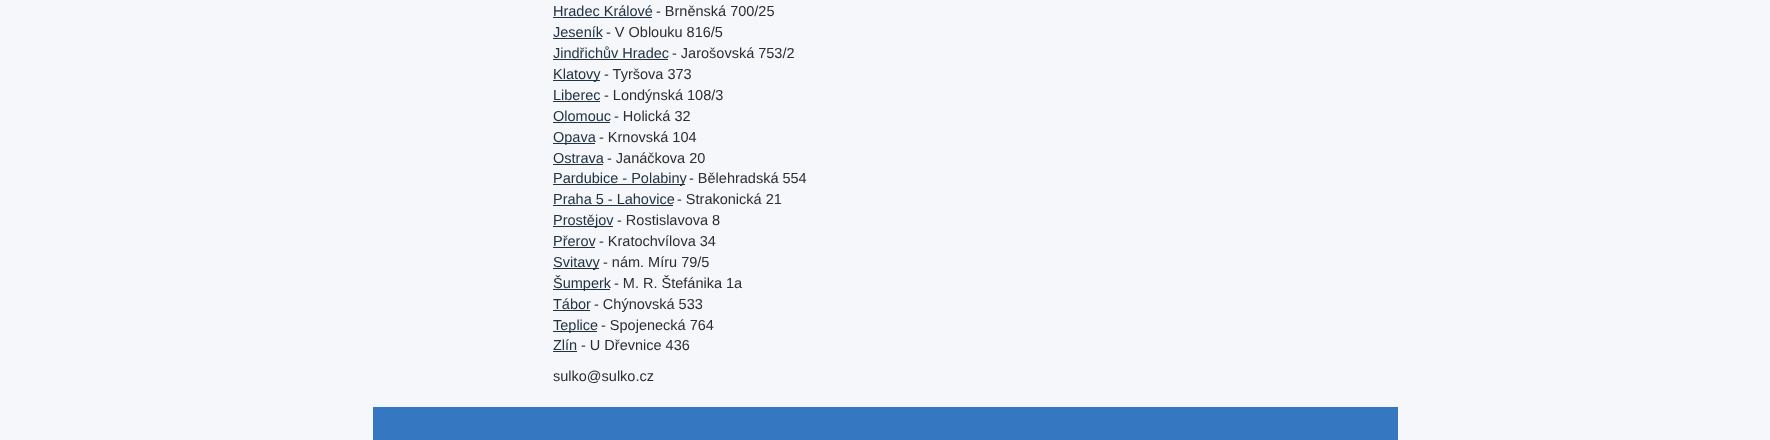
<!DOCTYPE html>
<meta charset="utf-8">
<style>body { margin: 0 } canvas { display: block }</style>
<canvas id="canvas" width="1770" height="440"></canvas>
<script type="module">
  const canvas = document.getElementById("canvas");
  const g = canvas.getContext("2d");
  g.miterLimit = 4;
  g.fontKerning = "normal";
  function drawText(s, x, y, [font, color]) {
    g.font = font;
    g.fillStyle = color;
    g.fillText(s, x, y);
  }
  function fillBox(x, y, w, h, color) {
    g.fillStyle = color;
    g.fillRect(x, y, w, h);
  }

  const s1 = ["14.5px Liberation Sans", "#223344"];
  const s2 = ["14.5px Liberation Sans", "#2C2E2F"];

  fillBox(0, 0, 1770, 440, "#F5F7FA");
  drawText("Hradec Králové", 553, 16, s1);
  fillBox(553, 17, 99, 1, "#223344");
  drawText("- Brněnská 700/25", 656, 16, s2);
  drawText("Jeseník", 553, 37, s1);
  fillBox(553, 38, 49, 1, "#223344");
  drawText("- V Oblouku 816/5", 606, 37, s2);
  drawText("Jindřichův Hradec", 553, 58, s1);
  fillBox(553, 59, 115, 1, "#223344");
  drawText("- Jarošovská 753/2", 672, 58, s2);
  fillBox(553, 80, 47, 1, "#223344");
  drawText("Klatovy", 553, 79, s1);
  drawText("- Tyršova 373", 604, 79, s2);
  drawText("Liberec", 553, 100, s1);
  fillBox(553, 101, 47, 1, "#223344");
  drawText("- Londýnská 108/3", 604, 100, s2);
  drawText("Olomouc", 553, 121, s1);
  fillBox(553, 122, 57, 1, "#223344");
  drawText("- Holická 32", 614, 121, s2);
  fillBox(553, 143, 42, 1, "#223344");
  drawText("Opava", 553, 142, s1);
  drawText("- Krnovská 104", 599, 142, s2);
  drawText("Ostrava", 553, 163, s1);
  fillBox(553, 164, 50, 1, "#223344");
  drawText("- Janáčkova 20", 607, 163, s2);
  fillBox(553, 184, 132, 1, "#223344");
  drawText("Pardubice - Polabiny", 553, 183, s1);
  drawText("- Bělehradská 554", 689, 183, s2);
  drawText("Praha 5 - Lahovice", 553, 204, s1);
  fillBox(553, 205, 120, 1, "#223344");
  drawText("- Strakonická 21", 677, 204, s2);
  fillBox(553, 226, 60, 1, "#223344");
  drawText("Prostějov", 553, 225, s1);
  drawText("- Rostislavova 8", 617, 225, s2);
  drawText("Přerov", 553, 246, s1);
  fillBox(553, 247, 42, 1, "#223344");
  drawText("- Kratochvílova 34", 599, 246, s2);
  fillBox(553, 268, 46, 1, "#223344");
  drawText("Svitavy", 553, 267, s1);
  drawText("- nám. Míru 79/5", 603, 267, s2);
  fillBox(553, 289, 57, 1, "#223344");
  drawText("Šumperk", 553, 288, s1);
  drawText("- M. R. Štefánika 1a", 614, 288, s2);
  drawText("Tábor", 553, 309, s1);
  fillBox(553, 310, 37, 1, "#223344");
  drawText("- Chýnovská 533", 594, 309, s2);
  fillBox(553, 331, 44, 1, "#223344");
  drawText("Teplice", 553, 330, s1);
  drawText("- Spojenecká 764", 601, 330, s2);
  drawText("Zlín", 553, 350, s1);
  fillBox(553, 351, 24, 1, "#223344");
  drawText("- U Dřevnice 436", 581, 350, s2);
  drawText("sulko@sulko.cz", 553, 381, s2);
  fillBox(373, 407, 1025, 33, "#3577C0");
</script>
